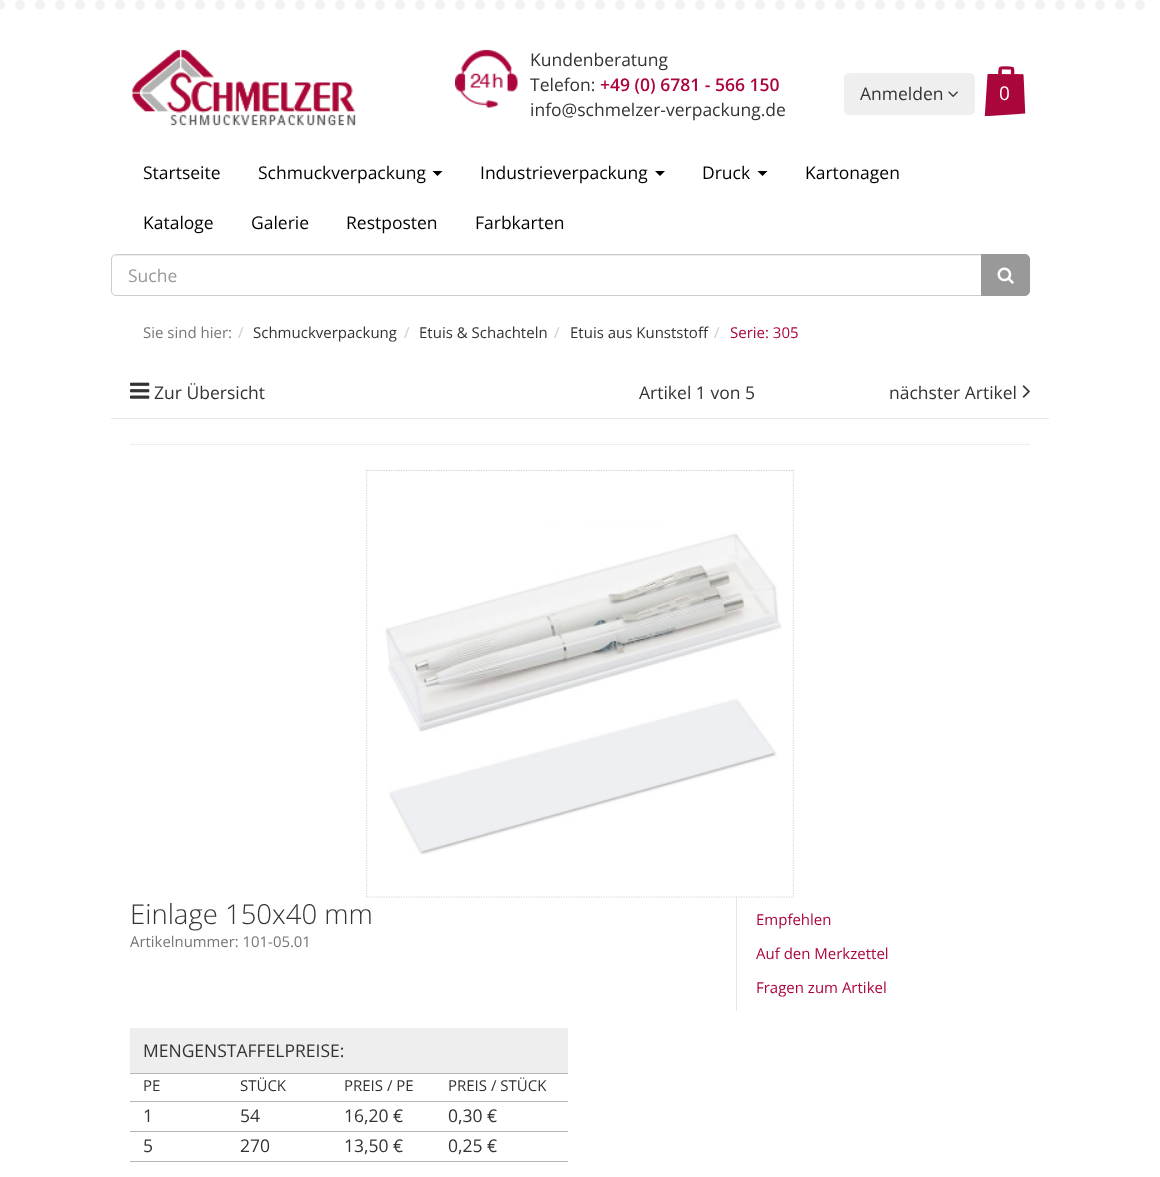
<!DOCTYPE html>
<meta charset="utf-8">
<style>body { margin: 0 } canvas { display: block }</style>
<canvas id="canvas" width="1160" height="1177"></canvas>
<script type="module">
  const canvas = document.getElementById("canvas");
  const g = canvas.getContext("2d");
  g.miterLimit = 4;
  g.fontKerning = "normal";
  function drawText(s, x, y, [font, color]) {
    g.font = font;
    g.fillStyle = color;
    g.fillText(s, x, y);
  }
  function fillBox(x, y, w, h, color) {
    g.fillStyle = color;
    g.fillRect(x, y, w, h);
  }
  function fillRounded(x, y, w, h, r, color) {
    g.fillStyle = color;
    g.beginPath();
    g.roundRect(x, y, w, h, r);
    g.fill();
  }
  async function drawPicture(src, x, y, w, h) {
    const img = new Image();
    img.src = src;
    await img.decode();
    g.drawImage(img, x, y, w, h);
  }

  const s1 = ["17.5px Open Sans", "#333333"];
  const s2 = ["600 17.5px Open Sans", "#AB063B"];
  const s3 = ["19px Open Sans", "#FFFFFF"];
  const s4 = ["17.5px Open Sans", "#000000"];
  const s5 = ["17.5px Open Sans", "#999999"];
  const s6 = ["15px Open Sans", "#777777"];
  const s7 = ["15px Open Sans", "#CCCCCC"];
  const s8 = ["15px Open Sans", "#333333"];
  const s9 = ["15px Open Sans", "#AB063B"];
  const s10 = ["300 27.5px Open Sans", "#333333"];
  const s11 = ["14.9px Open Sans", "#777777"];

  fillBox(0, 0, 1160, 1177, "#FFFFFF");
  g.beginPath();
  g.moveTo(0, 5);
  g.lineTo(1160, 5);
  g.strokeStyle = "#F2F2F2";
  g.lineWidth = 10;
  g.lineCap = "round";
  g.setLineDash([0, 20]);
  g.stroke();
  await drawPicture("pic1.png", 132, 49, 224, 77);
  await drawPicture("pic2.png", 455, 49, 63, 59);
  drawText("Kundenberatung", 530, 66, s1);
  drawText("Telefon:", 530, 91, s1);
  drawText("+49 (0) 6781 - 566 150", 600, 91, s2);
  drawText("info@schmelzer-verpackung.de", 530, 116, s1);
  fillRounded(844, 73, 131, 42, 5, "#EFEFEF");
  drawText("Anmelden", 860, 100, s1);
  await drawPicture("pic3.png", 948, 91, 10, 6);
  await drawPicture("pic4.png", 984, 66, 42, 50);
  drawText("0", 999, 100, s3);
  drawText("Startseite", 143, 179, s4);
  drawText("Schmuckverpackung", 258, 179, s4);
  g.beginPath();
  g.moveTo(432.5, 171);
  g.lineTo(442.5, 171);
  g.lineTo(437.5, 176);
  g.closePath();
  g.fill();
  drawText("Industrieverpackung", 480, 179, s4);
  g.beginPath();
  g.moveTo(655, 171);
  g.lineTo(665, 171);
  g.lineTo(660, 176);
  g.closePath();
  g.fill();
  drawText("Druck", 702, 179, s4);
  g.beginPath();
  g.moveTo(757.5, 171);
  g.lineTo(767.5, 171);
  g.lineTo(762.5, 176);
  g.closePath();
  g.fill();
  drawText("Kartonagen", 805, 179, s4);
  drawText("Kataloge", 143, 229, s4);
  drawText("Galerie", 251, 229, s4);
  drawText("Restposten", 346, 229, s4);
  drawText("Farbkarten", 475, 229, s4);
  g.fillStyle = "#ECECEC";
  g.beginPath();
  g.moveTo(116, 256);
  g.lineTo(981, 256);
  g.lineTo(981, 255);
  g.lineTo(117, 255);
  g.bezierCurveTo(116, 255, 114, 256, 114, 257);
  g.closePath();
  g.fill();
  g.beginPath();
  g.roundRect(111.5, 254.5, 871, 41, [4.5, 0, 0, 4.5]);
  g.strokeStyle = "#CCCCCC";
  g.lineWidth = 1;
  g.setLineDash([]);
  g.stroke();
  drawText("Suche", 128, 282, s5);
  g.beginPath();
  g.roundRect(981.5, 254.5, 48, 41, [0, 4.5, 4.5, 0]);
  g.fill();
  g.strokeStyle = "#999999";
  g.stroke();
  await drawPicture("pic5.png", 997, 267, 17, 17);
  drawText("Sie sind hier:", 143, 338, s6);
  drawText("/", 238, 338, s7);
  drawText("Schmuckverpackung", 253, 338, s8);
  drawText("/", 404, 338, s7);
  drawText("Etuis & Schachteln", 419, 338, s8);
  drawText("/", 554, 338, s7);
  drawText("Etuis aus Kunststoff", 570, 338, s8);
  drawText("/", 714, 338, s7);
  drawText("Serie: 305", 730, 338, s9);
  fillBox(111, 418, 938, 1, "#E7E7E7");
  await drawPicture("pic6.png", 130, 382, 20, 17);
  drawText("Zur Übersicht", 154, 399, s1);
  drawText("Artikel 1 von 5", 639, 399, s1);
  drawText("nächster Artikel", 889, 399, s1);
  await drawPicture("pic7.png", 1022, 385, 8, 13);
  fillBox(130, 444, 900, 1, "#EEEEEE");
  g.beginPath();
  g.moveTo(366, 470.5);
  g.lineTo(794, 470.5);
  g.strokeStyle = "#CCCCCC";
  g.lineWidth = 1.2;
  g.lineCap = "butt";
  g.setLineDash([1.25, 1.25]);
  g.stroke();
  g.beginPath();
  g.moveTo(793, 470);
  g.lineTo(793, 897.5);
  g.stroke();
  g.beginPath();
  g.moveTo(366, 897);
  g.lineTo(794, 897);
  g.stroke();
  g.beginPath();
  g.moveTo(367, 470);
  g.lineTo(367, 897.5);
  g.stroke();
  await drawPicture("pic8.png", 367, 472, 426, 425);
  drawText("Einlage 150x40 mm", 130, 924, s10);
  drawText("Artikelnummer: 101-05.01", 130, 947, s11);
  fillBox(130, 1028, 438, 45, "#EEEEEE");
  fillBox(130, 1073, 438, 1, "#B2B6B6");
  drawText("MENGENSTAFFELPREISE:", 143, 1057, s1);
  fillBox(130, 1101, 438, 1, "#B2B6B6");
  drawText("PE", 143, 1091, s8);
  drawText("STÜCK", 240, 1091, s8);
  drawText("PREIS / PE", 344, 1091, s8);
  drawText("PREIS / STÜCK", 448, 1091, s8);
  fillBox(130, 1131, 438, 1, "#B2B6B6");
  drawText("1", 143, 1122, s1);
  drawText("54", 240, 1122, s1);
  drawText("16,20 €", 344, 1122, s1);
  drawText("0,30 €", 448, 1122, s1);
  fillBox(130, 1161, 438, 1, "#B2B6B6");
  drawText("5", 143, 1152, s1);
  drawText("270", 240, 1152, s1);
  drawText("13,50 €", 344, 1152, s1);
  drawText("0,25 €", 448, 1152, s1);
  fillBox(736, 898, 1, 113, "#E7E7E7");
  drawText("Empfehlen", 756, 925, s9);
  drawText("Auf den Merkzettel", 756, 959, s9);
  drawText("Fragen zum Artikel", 756, 993, s9);
</script>
